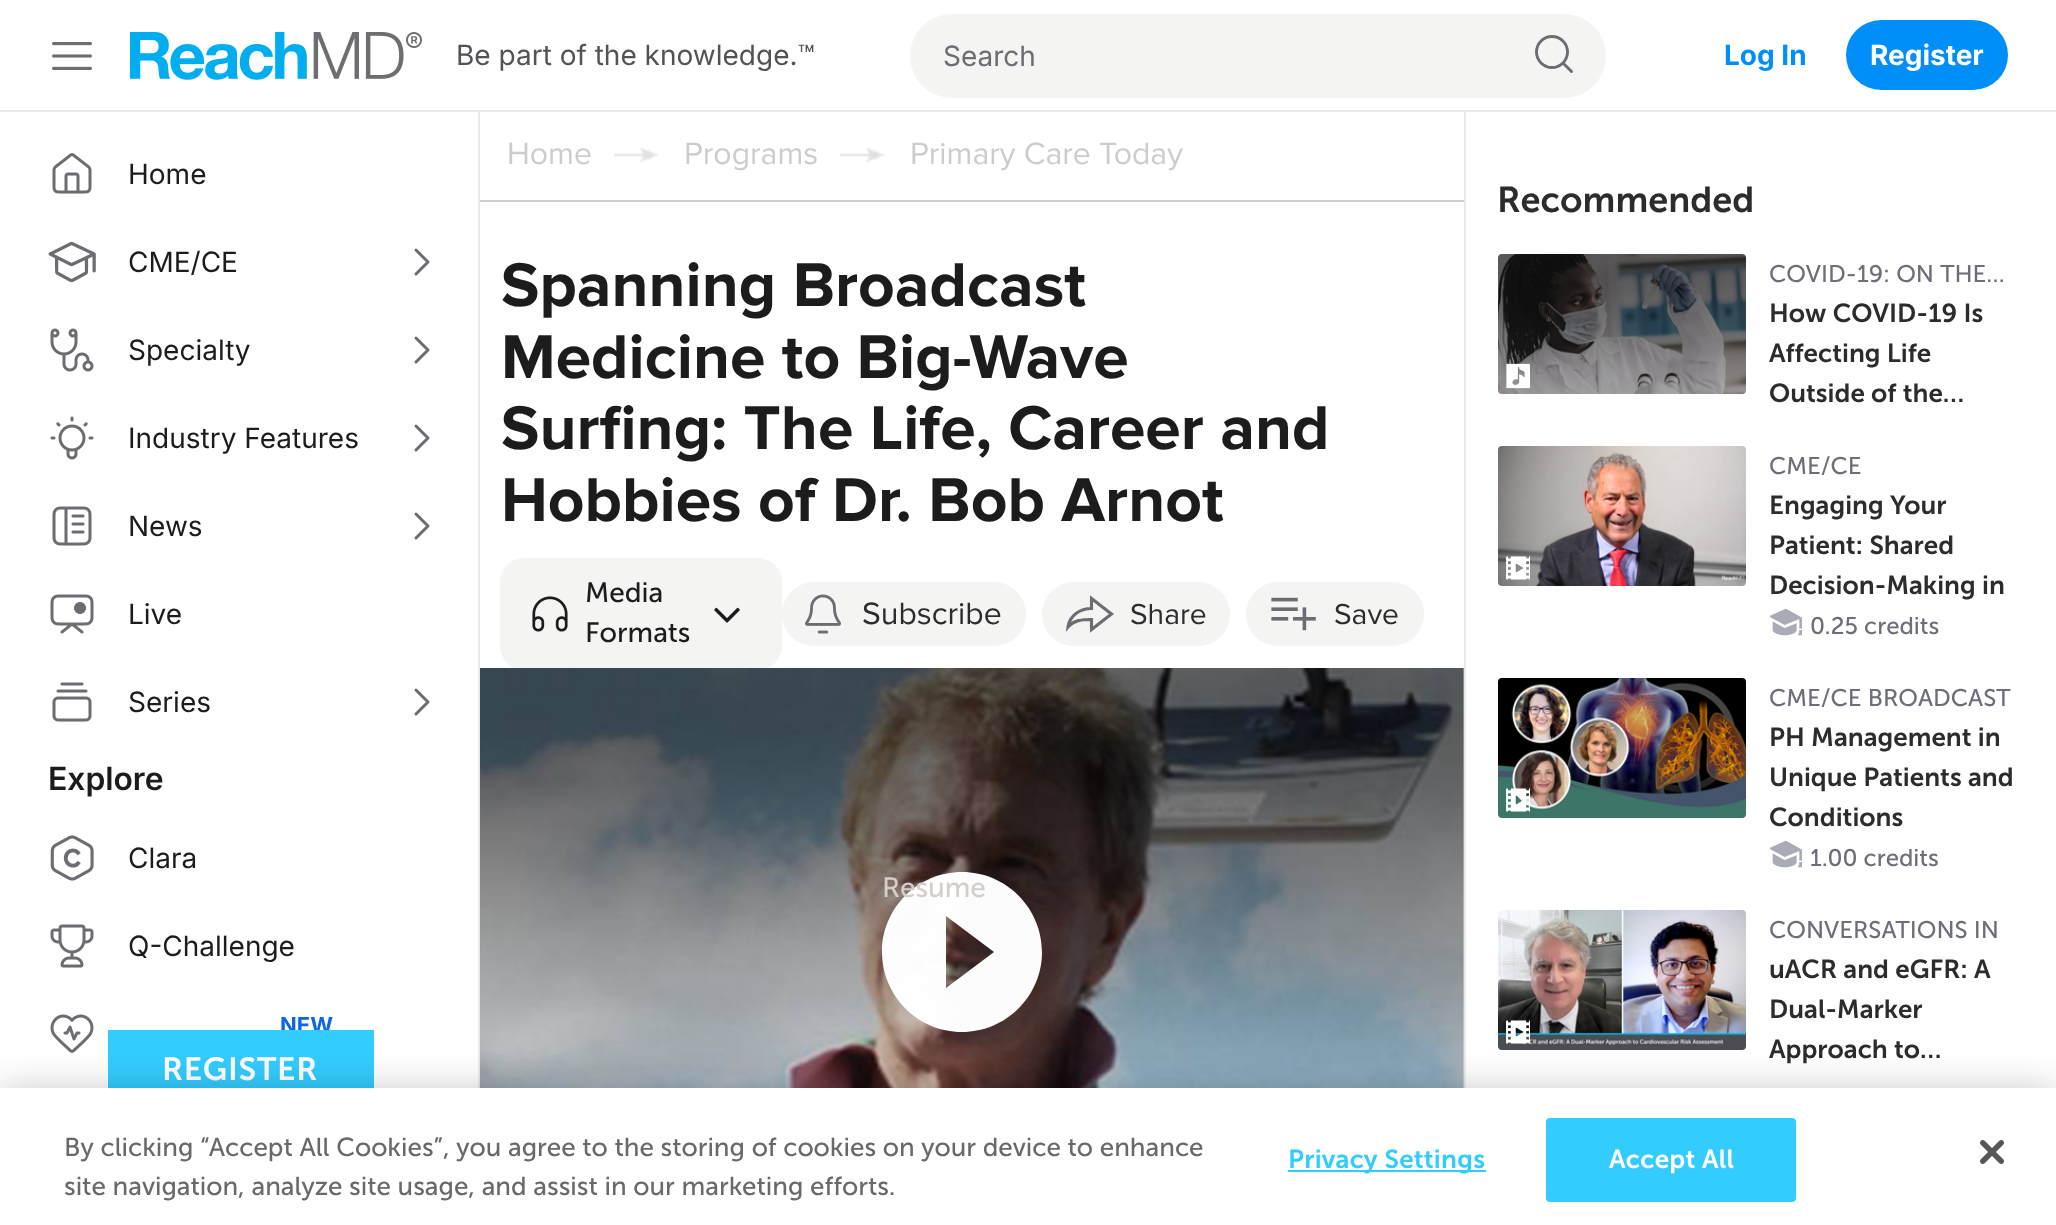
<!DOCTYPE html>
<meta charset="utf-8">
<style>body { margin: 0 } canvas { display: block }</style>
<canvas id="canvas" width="2056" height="1225"></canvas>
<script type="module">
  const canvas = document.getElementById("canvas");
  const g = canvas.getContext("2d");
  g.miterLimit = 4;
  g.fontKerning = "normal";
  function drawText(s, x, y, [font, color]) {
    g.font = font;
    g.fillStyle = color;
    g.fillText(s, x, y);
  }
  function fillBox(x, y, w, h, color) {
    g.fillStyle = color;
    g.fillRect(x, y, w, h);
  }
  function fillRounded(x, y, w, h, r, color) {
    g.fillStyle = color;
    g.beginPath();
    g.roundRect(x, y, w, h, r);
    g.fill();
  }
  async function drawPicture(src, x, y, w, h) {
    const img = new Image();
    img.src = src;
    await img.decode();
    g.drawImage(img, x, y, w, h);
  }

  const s1 = ["28px Inter", "#525257"];
  const s2 = ["28px Inter", "#6C6C72"];
  const s3 = ["bold 28px Inter", "#008FF8"];
  const s4 = ["bold 28px Inter", "#FFFFFF"];
  const s5 = ["28px Inter", "#1C1C1C"];
  const s6 = ["600 32px Inter", "#1C1C1C"];
  const s7 = ["bold 22px Inter", "#0B66E4"];
  const s8 = ["32px Proxima Nova", "#CCCCCC"];
  const s9 = ["bold 64px Proxima Nova", "#1C1C1C"];
  const s10 = ["28px Museo Sans", "#1C1C1C"];
  const s11 = ["32px Proxima Nova", "#2C2C2C"];
  const s12 = ["30px Proxima Nova", "#2C2C2C"];
  const s13 = ["28px Museo Sans", "#D4CECB"];
  const s14 = ["600 36px Museo Sans", "#2C2C2C"];
  const s15 = ["24px Museo Sans", "#6C6E79"];
  const s16 = ["600 26px Museo Sans", "#2C2C2C"];
  const s17 = ["600 32px Museo Sans", "#FFFFFF"];
  const s18 = ["26px Museo Sans", "#696969"];
  const s19 = ["600 26px Museo Sans", "#33CCFF"];
  const s20 = ["600 26px Museo Sans", "#FFFFFF"];

  fillBox(0, 0, 2056, 1225, "#FFFFFF");
  fillBox(478, 110, 2, 978, "#EAEAEA");
  fillBox(1464, 110, 2, 978, "#EAEAEA");
  fillBox(0, 110, 2056, 2, "#EAEAEA");
  await drawPicture("pic1.png", 52, 42, 40, 28);
  await drawPicture("pic2.png", 130, 32, 292, 48);
  drawText("Be part of the knowledge.™", 456, 65, s1);
  g.fillStyle = "#F4F4F3";
  g.beginPath();
  g.roundRect(910, 14, 600, 84, [42, 0, 0, 42]);
  g.fill();
  drawText("Search", 943, 66, s2);
  g.fillStyle = "#F4F4F3";
  g.beginPath();
  g.roundRect(1510, 14, 96, 84, [0, 42, 42, 0]);
  g.fill();
  g.beginPath();
  g.moveTo(1552, 67.5);
  g.bezierCurveTo(1560.5, 67.5, 1567.5, 60.5, 1567.5, 52);
  g.bezierCurveTo(1567.5, 43.5, 1560.5, 36.5, 1552, 36.5);
  g.bezierCurveTo(1543.5, 36.5, 1536.5, 43.5, 1536.5, 52);
  g.bezierCurveTo(1536.5, 60.5, 1543.5, 67.5, 1552, 67.5);
  g.closePath();
  g.moveTo(1571.5, 71.5);
  g.lineTo(1563, 63);
  g.strokeStyle = "#6C6C72";
  g.lineWidth = 2.9;
  g.lineCap = "round";
  g.lineJoin = "round";
  g.stroke();
  drawText("Log In", 1724, 65, s3);
  fillRounded(1846, 20, 162, 70, 35, "#008FF8");
  drawText("Register", 1870, 65, s4);
  await drawPicture("pic3.png", 52, 153, 40, 41);
  drawText("Home", 128, 184, s5);
  await drawPicture("pic4.png", 48, 241, 48, 42);
  drawText("CME/CE", 128, 272, s5);
  g.beginPath();
  g.moveTo(416, 274);
  g.lineTo(428, 262);
  g.lineTo(416, 250);
  g.lineWidth = 3;
  g.stroke();
  await drawPicture("pic5.png", 50, 328, 44, 44);
  drawText("Specialty", 128, 360, s5);
  g.beginPath();
  g.moveTo(416, 362);
  g.lineTo(428, 350);
  g.lineTo(416, 338);
  g.stroke();
  await drawPicture("pic6.png", 50, 416, 44, 44);
  drawText("Industry Features", 128, 448, s5);
  g.beginPath();
  g.moveTo(416, 450);
  g.lineTo(428, 438);
  g.lineTo(416, 426);
  g.stroke();
  await drawPicture("pic7.png", 52, 506, 40, 40);
  drawText("News", 128, 536, s5);
  g.beginPath();
  g.moveTo(416, 538);
  g.lineTo(428, 526);
  g.lineTo(416, 514);
  g.stroke();
  await drawPicture("pic8.png", 50, 594, 44, 40);
  drawText("Live", 128, 624, s5);
  await drawPicture("pic9.png", 52, 682, 40, 40);
  drawText("Series", 128, 712, s5);
  g.beginPath();
  g.moveTo(416, 714);
  g.lineTo(428, 702);
  g.lineTo(416, 690);
  g.stroke();
  drawText("Explore", 48, 790, s6);
  await drawPicture("pic10.png", 50, 835, 44, 46);
  drawText("Clara", 128, 868, s5);
  await drawPicture("pic11.png", 50, 924, 44, 44);
  drawText("Q-Challenge", 128, 956, s5);
  await drawPicture("pic12.png", 50, 1014, 44, 39);
  drawText("NEW", 280, 1033, s7);
  fillBox(480, 200, 984, 2, "#CCCCCC");
  drawText("Home", 507, 164, s8);
  await drawPicture("pic13.png", 614, 148, 44, 14);
  drawText("Programs", 684, 164, s8);
  await drawPicture("pic13.png", 840, 148, 44, 14);
  drawText("Primary Care Today", 910, 164, s8);
  drawText("Spanning Broadcast", 501, 306, s9);
  drawText("Medicine to Big-Wave", 501, 378, s9);
  drawText("Surfing: The Life, Career and", 501, 449, s9);
  drawText("Hobbies of Dr. Bob Arnot", 501, 521, s9);
  fillRounded(500, 558, 282, 112, 24, "#F4F4F3");
  drawText("Media", 585, 602, s10);
  await drawPicture("pic14.png", 532, 596, 36, 36);
  await drawPicture("pic15.png", 714, 607, 26, 16);
  drawText("Formats", 585, 642, s10);
  fillRounded(782, 582, 244, 64, 32, "#F4F4F3");
  await drawPicture("pic16.png", 805, 594, 36, 40);
  drawText("Subscribe", 862, 624, s11);
  fillRounded(1042, 582, 188, 64, 32, "#F4F4F3");
  g.beginPath();
  g.moveTo(1091.5, 621);
  g.lineTo(1091.5, 619.5);
  g.bezierCurveTo(1082.5, 619.5, 1074, 620, 1068, 627);
  g.bezierCurveTo(1069.5, 615.5, 1080, 608.5, 1091.5, 608.5);
  g.lineTo(1091.5, 598.5);
  g.lineTo(1111.5, 614);
  g.lineTo(1091.5, 629.5);
  g.closePath();
  g.lineWidth = 3.1;
  g.lineCap = "butt";
  g.lineJoin = "miter";
  g.stroke();
  drawText("Share", 1130, 624, s12);
  fillRounded(1246, 582, 178, 64, 32, "#F4F4F3");
  await drawPicture("pic17.png", 1271, 597, 45, 34);
  drawText("Save", 1334, 624, s12);
  await drawPicture("pic18.png", 480, 668, 984, 420);
  g.fillStyle = "rgba(255, 255, 255, 0.99)";
  g.beginPath();
  g.moveTo(962, 872);
  g.bezierCurveTo(918, 872, 882, 908, 882, 952);
  g.bezierCurveTo(882, 996, 918, 1032, 962, 1032);
  g.bezierCurveTo(1006, 1032, 1042, 996, 1042, 952);
  g.bezierCurveTo(1042, 908, 1006, 872, 962, 872);
  g.closePath();
  g.moveTo(946, 988);
  g.lineTo(946, 916);
  g.lineTo(994, 952);
  g.closePath();
  g.fill("evenodd");
  drawText("Resume", 882, 897, s13);
  drawText("Recommended", 1497, 212, s14);
  await drawPicture("pic19.png", 1498, 254, 248, 140);
  await drawPicture("pic20.png", 1506, 363, 24, 26);
  drawText("COVID-19: ON THE…", 1769, 282, s15);
  drawText("How COVID-19 Is", 1769, 322, s16);
  drawText("Affecting Life", 1769, 362, s16);
  drawText("Outside of the…", 1769, 402, s16);
  await drawPicture("pic21.png", 1498, 446, 248, 140);
  await drawPicture("pic22.png", 1506, 556, 24, 24);
  drawText("CME/CE", 1769, 474, s15);
  drawText("Engaging Your", 1769, 514, s16);
  drawText("Patient: Shared", 1769, 554, s16);
  drawText("Decision-Making in", 1769, 594, s16);
  await drawPicture("pic23.png", 1770, 608, 32, 28);
  drawText("0.25 credits", 1810, 634, s15);
  await drawPicture("pic24.png", 1498, 678, 248, 140);
  await drawPicture("pic25.png", 1506, 788, 24, 24);
  drawText("CME/CE BROADCAST", 1769, 706, s15);
  drawText("PH Management in", 1769, 746, s16);
  drawText("Unique Patients and", 1769, 786, s16);
  drawText("Conditions", 1769, 826, s16);
  await drawPicture("pic23.png", 1770, 840, 32, 28);
  drawText("1.00 credits", 1810, 866, s15);
  await drawPicture("pic26.png", 1498, 910, 248, 140);
  await drawPicture("pic27.png", 1506, 1020, 24, 24);
  drawText("CONVERSATIONS IN", 1769, 938, s15);
  drawText("uACR and eGFR: A", 1769, 978, s16);
  drawText("Dual-Marker", 1769, 1018, s16);
  drawText("Approach to…", 1769, 1058, s16);
  fillBox(108, 1030, 266, 58, "#33CCFF");
  g.letterSpacing = "0.75px";
  drawText("REGISTER", 162, 1080, s17);
  g.fillStyle = "rgba(0, 0, 0, 0.2)";
  g.filter = "blur(18px)";
  g.beginPath();
  g.rect(0, 1088, 2056, 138);
  g.fill();
  g.filter = "none";
  fillBox(0, 1088, 2056, 137, "#FFFFFF");
  g.letterSpacing = "0px";
  drawText("By clicking “Accept All Cookies”, you agree to the storing of cookies on your device to enhance", 64, 1156, s18);
  drawText("site navigation, analyze site usage, and assist in our marketing efforts.", 64, 1195, s18);
  fillBox(1288, 1170, 198, 2, "#33CCFF");
  g.letterSpacing = "0.25px";
  drawText("Privacy Settings", 1288, 1168, s19);
  g.beginPath();
  g.roundRect(1547, 1119, 248, 82, 3);
  g.fill();
  g.strokeStyle = "#33CCFF";
  g.lineWidth = 2;
  g.stroke();
  drawText("Accept All", 1609, 1168, s20);
  await drawPicture("pic28.png", 1980, 1140, 24, 24);
</script>
